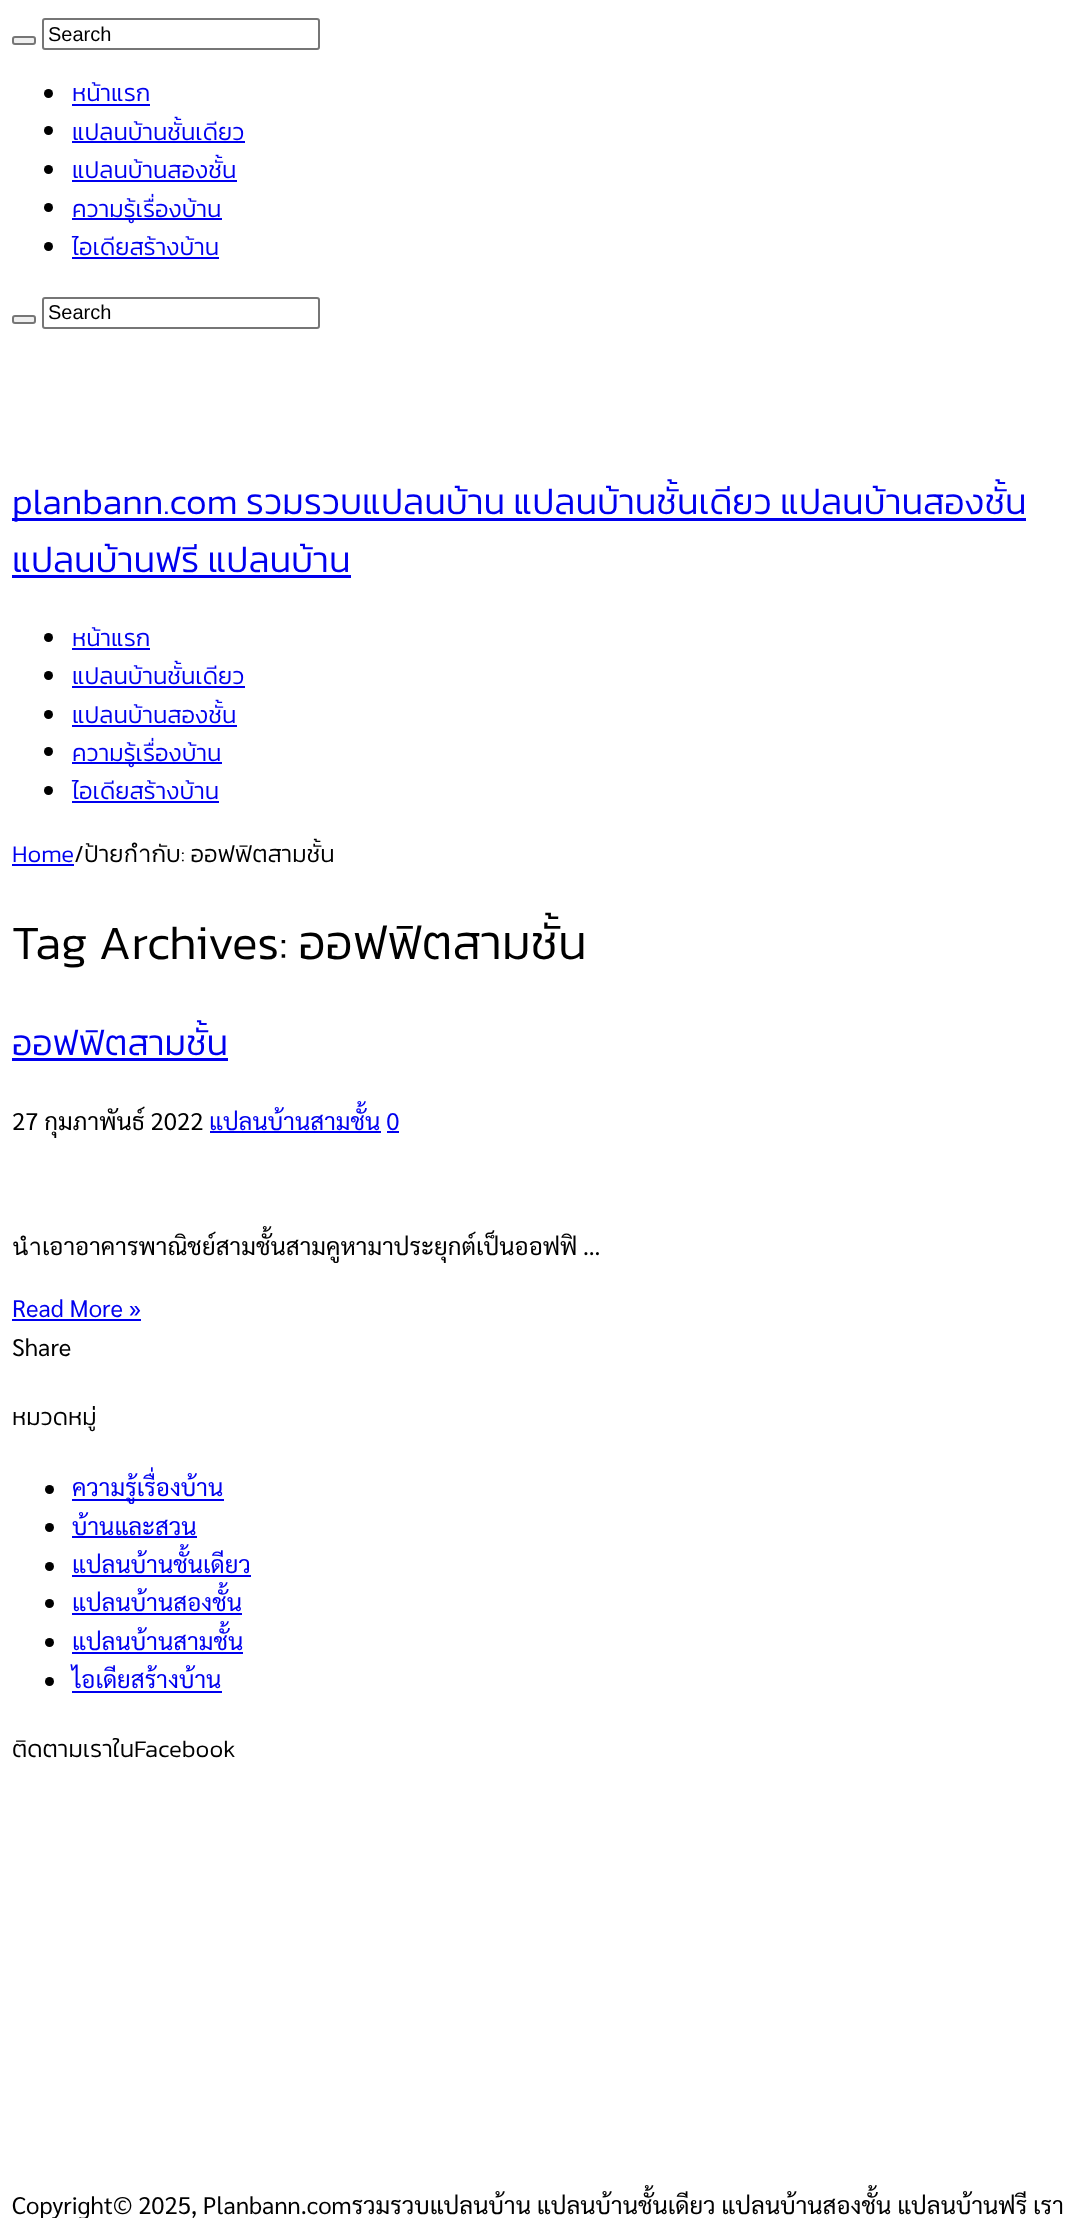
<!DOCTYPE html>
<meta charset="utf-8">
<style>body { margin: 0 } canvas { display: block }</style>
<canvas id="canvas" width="1089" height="2218"></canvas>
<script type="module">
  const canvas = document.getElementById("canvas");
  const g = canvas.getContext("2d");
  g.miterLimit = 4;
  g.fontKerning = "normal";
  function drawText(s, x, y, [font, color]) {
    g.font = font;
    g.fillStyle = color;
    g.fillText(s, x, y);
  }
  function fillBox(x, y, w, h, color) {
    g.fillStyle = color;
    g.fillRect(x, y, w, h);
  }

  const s1 = ["20px Liberation Sans", "#000000"];
  const s2 = ["300 24px Kanit", "#0000EE"];
  const s3 = ["300 36px Kanit", "#0000EE"];
  const s4 = ["300 24px Kanit", "#000000"];
  const s5 = ["300 48px Kanit", "#000000"];
  const s6 = ["24px Sarabun", "#000000"];
  const s7 = ["24px Sarabun", "#0000EE"];

  fillBox(0, 0, 1089, 2218, "#FFFFFF");
  g.fillStyle = "#EFEFEF";
  g.beginPath();
  g.roundRect(13, 37, 22, 7, 2);
  g.fill();
  g.strokeStyle = "#767676";
  g.lineWidth = 2;
  g.stroke();
  g.beginPath();
  g.roundRect(43, 19, 276, 30, 2);
  g.stroke();
  drawText("Search", 48, 41, s1);
  g.beginPath();
  g.arc(48.5, 93.5, 4.5, 0, Math.PI * 2);
  g.fill();
  drawText("หน้าแรก", 72, 101, s2);
  fillBox(72, 104, 78, 2, "#0000EE");
  g.fillStyle = "#000000";
  g.beginPath();
  g.arc(48.5, 130.5, 4.5, 0, Math.PI * 2);
  g.fill();
  drawText("แปลนบ้านชั้นเดียว", 72, 140, s2);
  fillBox(72, 141, 173, 2, "#0000EE");
  g.fillStyle = "#000000";
  g.beginPath();
  g.arc(48.5, 169.5, 4.5, 0, Math.PI * 2);
  g.fill();
  drawText("แปลนบ้านสองชั้น", 72, 178, s2);
  fillBox(72, 180, 165, 2, "#0000EE");
  g.fillStyle = "#000000";
  g.beginPath();
  g.arc(48.5, 207.5, 4.5, 0, Math.PI * 2);
  g.fill();
  fillBox(72, 218, 150, 2, "#0000EE");
  drawText("ความรู้เรื่องบ้าน", 72, 217, s2);
  g.fillStyle = "#000000";
  g.beginPath();
  g.arc(48.5, 246.5, 4.5, 0, Math.PI * 2);
  g.fill();
  drawText("ไอเดียสร้างบ้าน", 72, 255, s2);
  fillBox(72, 257, 147, 2, "#0000EE");
  g.fillStyle = "#EFEFEF";
  g.beginPath();
  g.roundRect(13, 316, 22, 7, 2);
  g.fill();
  g.stroke();
  g.beginPath();
  g.roundRect(43, 298, 276, 30, 2);
  g.stroke();
  drawText("Search", 48, 319, s1);
  fillBox(12, 518, 1014, 3, "#0000EE");
  drawText("planbann.com รวมรวบแปลนบ้าน แปลนบ้านชั้นเดียว แปลนบ้านสองชั้น", 12, 514, s3);
  drawText("แปลนบ้านฟรี แปลนบ้าน", 12, 572, s3);
  fillBox(12, 575, 339, 3, "#0000EE");
  g.fillStyle = "#000000";
  g.beginPath();
  g.arc(48.5, 637.5, 4.5, 0, Math.PI * 2);
  g.fill();
  drawText("หน้าแรก", 72, 646, s2);
  fillBox(72, 648, 78, 2, "#0000EE");
  g.fillStyle = "#000000";
  g.beginPath();
  g.arc(48.5, 675.5, 4.5, 0, Math.PI * 2);
  g.fill();
  drawText("แปลนบ้านชั้นเดียว", 72, 684, s2);
  fillBox(72, 686, 173, 2, "#0000EE");
  g.fillStyle = "#000000";
  g.beginPath();
  g.arc(48.5, 714.5, 4.5, 0, Math.PI * 2);
  g.fill();
  drawText("แปลนบ้านสองชั้น", 72, 723, s2);
  fillBox(72, 725, 165, 2, "#0000EE");
  g.fillStyle = "#000000";
  g.beginPath();
  g.arc(48.5, 751.5, 4.5, 0, Math.PI * 2);
  g.fill();
  fillBox(72, 762, 150, 2, "#0000EE");
  drawText("ความรู้เรื่องบ้าน", 72, 761, s2);
  g.fillStyle = "#000000";
  g.beginPath();
  g.arc(48.5, 790.5, 4.5, 0, Math.PI * 2);
  g.fill();
  drawText("ไอเดียสร้างบ้าน", 72, 799, s2);
  fillBox(72, 801, 147, 2, "#0000EE");
  drawText("Home", 12, 862, s2);
  fillBox(12, 864, 62, 2, "#0000EE");
  drawText("/ป้ายกำกับ: ออฟฟิตสามชั้น", 74, 862, s4);
  drawText("Tag Archives: ออฟฟิตสามชั้น", 12, 959, s5);
  drawText("ออฟฟิตสามชั้น", 12, 1055, s3);
  fillBox(12, 1058, 216, 3, "#0000EE");
  drawText("27 กุมภาพันธ์ 2022", 12, 1130, s6);
  drawText("แปลนบ้านสามชั้น 0", 209, 1130, s7);
  fillBox(210, 1131, 171, 2, "#0000EE");
  fillBox(387, 1131, 12, 2, "#0000EE");
  drawText("นำเอาอาคารพาณิชย์สามชั้นสามคูหามาประยุกต์เป็นออฟฟิ …", 12, 1255, s6);
  drawText("Read More »", 12, 1317, s7);
  fillBox(12, 1319, 129, 2, "#0000EE");
  drawText("Share", 12, 1356, s6);
  drawText("หมวดหมู่", 12, 1425, s4);
  g.beginPath();
  g.arc(49.5, 1489.5, 4.5, 0, Math.PI * 2);
  g.fill();
  fillBox(72, 1499, 152, 2, "#0000EE");
  drawText("ความรู้เรื่องบ้าน", 72, 1496, s7);
  g.fillStyle = "#000000";
  g.beginPath();
  g.arc(49.5, 1527.5, 4.5, 0, Math.PI * 2);
  g.fill();
  drawText("บ้านและสวน", 72, 1535, s7);
  fillBox(72, 1536, 125, 2, "#0000EE");
  g.fillStyle = "#000000";
  g.beginPath();
  g.arc(49.5, 1566.5, 4.5, 0, Math.PI * 2);
  g.fill();
  drawText("แปลนบ้านชั้นเดียว", 72, 1573, s7);
  fillBox(72, 1575, 179, 2, "#0000EE");
  g.fillStyle = "#000000";
  g.beginPath();
  g.arc(49.5, 1603.5, 4.5, 0, Math.PI * 2);
  g.fill();
  drawText("แปลนบ้านสองชั้น", 72, 1611, s7);
  fillBox(72, 1613, 170, 2, "#0000EE");
  g.fillStyle = "#000000";
  g.beginPath();
  g.arc(49.5, 1642.5, 4.5, 0, Math.PI * 2);
  g.fill();
  drawText("แปลนบ้านสามชั้น", 72, 1650, s7);
  fillBox(72, 1652, 171, 2, "#0000EE");
  g.fillStyle = "#000000";
  g.beginPath();
  g.arc(49.5, 1681.5, 4.5, 0, Math.PI * 2);
  g.fill();
  drawText("ไอเดียสร้างบ้าน", 72, 1688, s7);
  fillBox(72, 1691, 150, 2, "#0000EE");
  drawText("ติดตามเราในFacebook", 12, 1757, s4);
  drawText("Copyright© 2025, Planbann.comรวมรวบแปลนบ้าน แปลนบ้านชั้นเดียว แปลนบ้านสองชั้น แปลนบ้านฟรี เรา", 12, 2214, s6);
</script>
